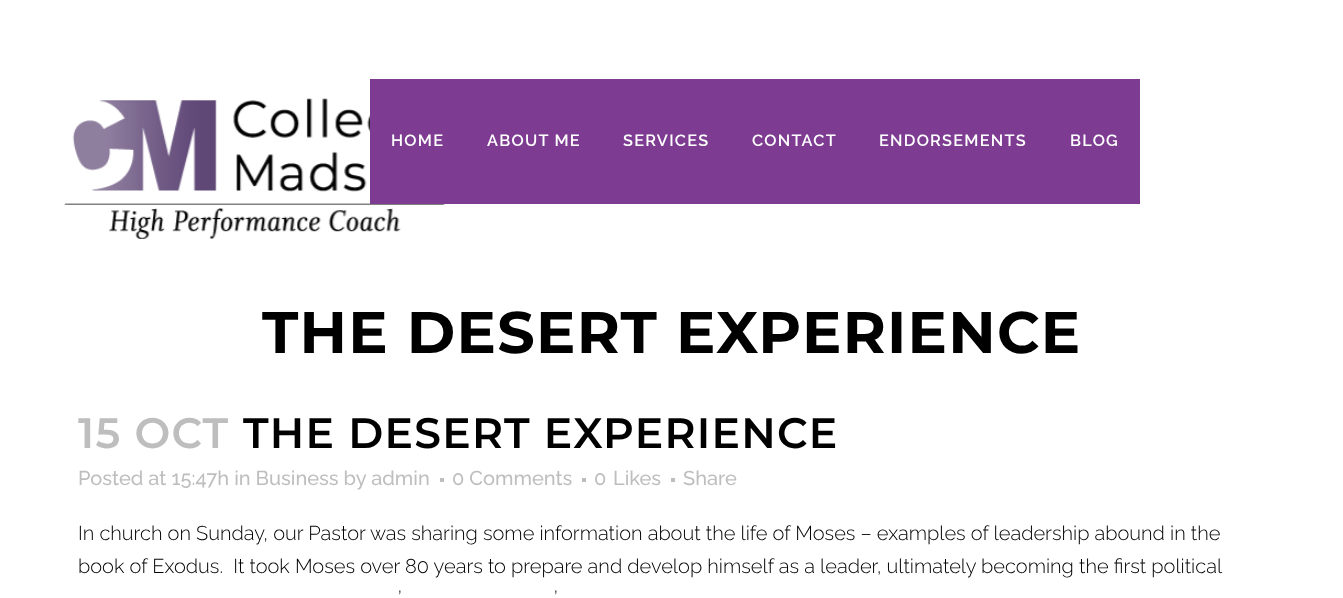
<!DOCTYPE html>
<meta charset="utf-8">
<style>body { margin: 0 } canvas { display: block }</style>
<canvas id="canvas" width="1343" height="598"></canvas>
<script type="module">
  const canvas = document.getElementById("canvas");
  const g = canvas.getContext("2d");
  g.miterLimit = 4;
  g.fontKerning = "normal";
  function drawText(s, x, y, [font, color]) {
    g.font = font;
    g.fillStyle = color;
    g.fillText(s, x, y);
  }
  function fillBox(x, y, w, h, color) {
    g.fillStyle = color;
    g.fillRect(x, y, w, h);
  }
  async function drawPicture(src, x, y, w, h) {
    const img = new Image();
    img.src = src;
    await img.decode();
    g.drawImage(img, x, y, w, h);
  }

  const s1 = ["600 16.25px Raleway", "#FFFFFF"];
  const s2 = ["bold 58.75px Montserrat", "#000000"];
  const s3 = ["600 42.5px Montserrat", "#BEBEBE"];
  const s4 = ["600 42.5px Montserrat", "#000000"];
  const s5 = ["500 20px Raleway", "#BEBEBE"];
  const s6 = ["300 20px Raleway", "#000000"];

  fillBox(0, 0, 1343, 598, "#FFFFFF");
  await drawPicture("pic1.png", 64, 98, 382, 141);
  fillBox(370, 79, 770, 125, "#7D3C91");
  g.letterSpacing = "1.25px";
  drawText("HOME", 391, 146, s1);
  drawText("ABOUT ME", 487, 146, s1);
  drawText("SERVICES", 623, 146, s1);
  drawText("CONTACT", 752, 146, s1);
  drawText("ENDORSEMENTS", 879, 146, s1);
  drawText("BLOG", 1070, 146, s1);
  drawText("THE DESERT EXPERIENCE", 262, 353, s2);
  drawText("15 OCT", 78, 448, s3);
  drawText("THE DESERT EXPERIENCE", 243, 448, s4);
  g.letterSpacing = "0px";
  drawText("Posted at 15:47h in Business by admin", 78, 485, s5);
  fillBox(440, 478, 4, 4, "#BEBEBE");
  drawText("0 Comments", 452, 485, s5);
  fillBox(582, 478, 4, 4, "#BEBEBE");
  drawText("0", 594, 485, s5);
  drawText("Likes", 613, 485, s5);
  fillBox(671, 478, 4, 4, "#BEBEBE");
  drawText("Share", 683, 485, s5);
  drawText("In church on Sunday, our Pastor was sharing some information about the life of Moses – examples of leadership abound in the", 78, 540, s6);
  drawText("book of Exodus.  It took Moses over 80 years to prepare and develop himself as a leader, ultimately becoming the first political", 78, 573, s6);
  drawText("’", 398, 605, s6);
  drawText("’", 554, 605, s6);
</script>
